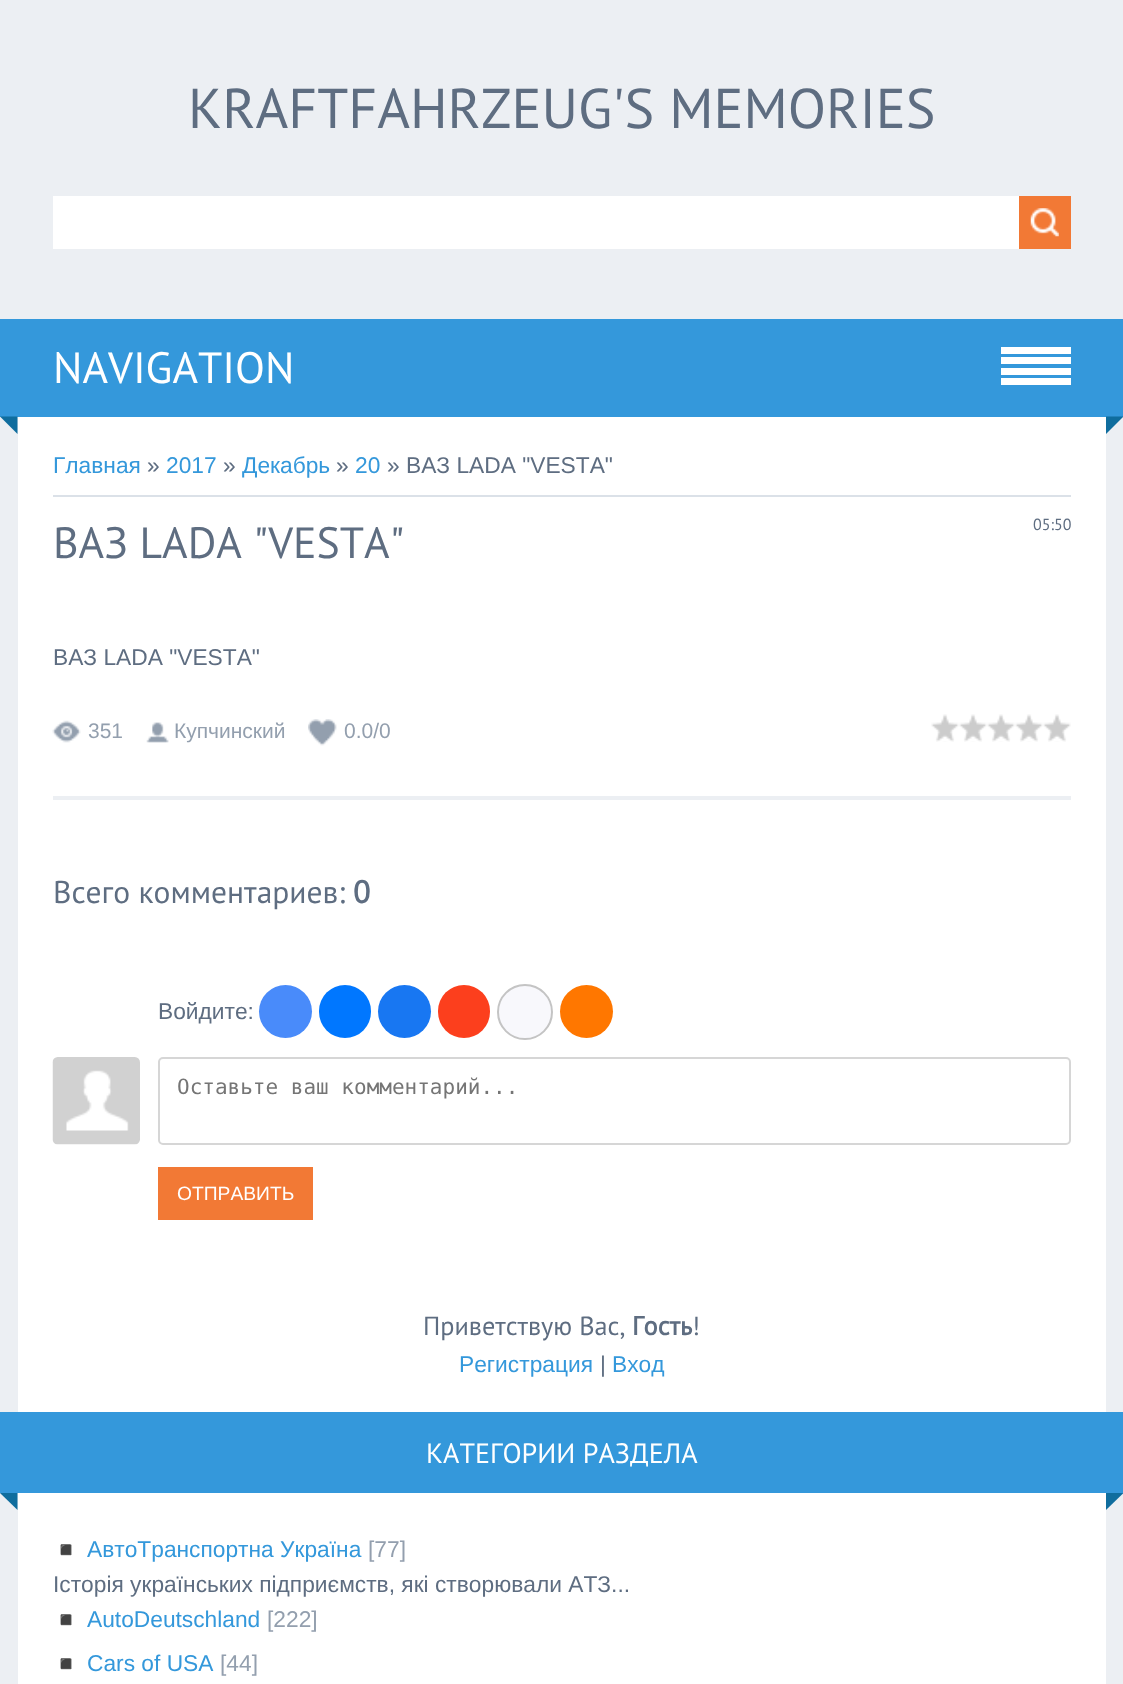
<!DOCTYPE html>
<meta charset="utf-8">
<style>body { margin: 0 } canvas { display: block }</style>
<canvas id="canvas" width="1123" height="1684"></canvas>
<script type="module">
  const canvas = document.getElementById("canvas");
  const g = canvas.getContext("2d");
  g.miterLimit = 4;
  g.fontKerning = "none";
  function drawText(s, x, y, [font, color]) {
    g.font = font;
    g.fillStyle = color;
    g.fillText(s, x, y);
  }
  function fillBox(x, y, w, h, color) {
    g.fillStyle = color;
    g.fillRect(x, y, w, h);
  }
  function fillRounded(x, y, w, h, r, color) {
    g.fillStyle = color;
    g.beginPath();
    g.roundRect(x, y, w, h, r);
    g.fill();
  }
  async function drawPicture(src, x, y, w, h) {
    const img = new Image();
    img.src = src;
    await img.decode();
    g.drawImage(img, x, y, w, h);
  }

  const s1 = ["56px PT Sans", "#5E6D81"];
  const s2 = ["43.75px PT Sans", "#FFFFFF"];
  const s3 = ["22.75px Liberation Sans", "#3498DB"];
  const s4 = ["22.75px Liberation Sans", "#5E6D81"];
  const s5 = ["16px PT Sans", "#5E6D81"];
  const s6 = ["43.75px PT Sans", "#5E6D81"];
  const s7 = ["21px Liberation Sans", "#939FAE"];
  const s8 = ["31.5px PT Sans", "#5E6D81"];
  const s9 = ["bold 31.5px PT Sans", "#5E6D81"];
  const s10 = ["21px DejaVu Sans Mono", "#757575"];
  const s11 = ["19.25px Liberation Sans", "#FFFFFF"];
  const s12 = ["26.25px PT Sans", "#5E6D81"];
  const s13 = ["bold 26.25px PT Sans", "#5E6D81"];
  const s14 = ["28px PT Sans", "#FFFFFF"];
  const s15 = ["21px Noto Color Emoji", "#DADDDF"];
  const s16 = ["22.75px Liberation Sans", "#939FAE"];

  fillBox(0, 0, 1123, 1684, "#ECEFF3");
  drawText("KRAFTFAHRZEUG'S MEMORIES", 188, 128, s1);
  fillBox(53, 196, 966, 53, "#FFFFFF");
  fillBox(1019, 196, 52, 53, "#F27935");
  await drawPicture("pic1.png", 1030, 208, 29, 29);
  fillBox(0, 319, 1123, 98, "#3498DB");
  drawText("NAVIGATION", 53, 383, s2);
  fillBox(1001, 347, 70, 7, "#FFFFFF");
  fillBox(1001, 357, 70, 7, "#FFFFFF");
  fillBox(1001, 368, 70, 7, "#FFFFFF");
  fillBox(1001, 378, 70, 7, "#FFFFFF");
  g.fillStyle = "#0F6D9E";
  g.beginPath();
  g.moveTo(0, 416.5);
  g.lineTo(17.5, 416.5);
  g.lineTo(17.5, 434);
  g.closePath();
  g.fill();
  g.beginPath();
  g.moveTo(1106, 416.5);
  g.lineTo(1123.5, 416.5);
  g.lineTo(1106, 434);
  g.closePath();
  g.fill();
  fillBox(18, 417, 1088, 1267, "#FFFFFF");
  drawText("Главная", 53, 473, s3);
  drawText("»", 147, 473, s4);
  drawText("2017", 166, 473, s3);
  drawText("»", 223, 473, s4);
  drawText("Декабрь", 242, 473, s3);
  drawText("»", 336, 473, s4);
  drawText("20", 355, 473, s3);
  drawText("» ВАЗ LADA \"VESTA\"", 387, 473, s4);
  fillBox(53, 495, 1018, 2, "#DBE1E8");
  fillBox(53, 796, 1018, 4, "#ECEFF3");
  drawText("05:50", 1033, 530, s5);
  drawText("ВАЗ LADA \"VESTA\"", 53, 558, s6);
  drawText("ВАЗ LADA \"VESTA\"", 53, 665, s4);
  await drawPicture("pic2.png", 52, 720, 29, 23);
  drawText("351", 88, 738, s7);
  await drawPicture("pic3.png", 146, 722, 23, 21);
  drawText("Купчинский", 174, 738, s7);
  await drawPicture("pic4.png", 308, 719, 29, 27);
  drawText("0.0/0", 344, 738, s7);
  await drawPicture("pic5.png", 931, 714, 140, 28);
  drawText("Всего комментариев:", 53, 903, s8);
  drawText("0", 353, 903, s9);
  drawText("Войдите:", 158, 1019, s4);
  g.fillStyle = "#498BFA";
  g.beginPath();
  g.arc(285.5, 1011.5, 26.5, 0, Math.PI * 2);
  g.fill();
  fillRounded(319, 985, 52, 53, 26, "#0077FF");
  g.fillStyle = "#1877F2";
  g.beginPath();
  g.arc(404.5, 1011.5, 26.5, 0, Math.PI * 2);
  g.fill();
  fillRounded(438, 985, 52, 53, 26, "#FC3F1D");
  g.fillStyle = "#F8F8FC";
  g.beginPath();
  g.arc(525, 1012, 27, 0, Math.PI * 2);
  g.fill();
  g.strokeStyle = "#C4C4C4";
  g.lineWidth = 2;
  g.stroke();
  g.fillStyle = "#FF7700";
  g.beginPath();
  g.arc(586.5, 1011.5, 26.5, 0, Math.PI * 2);
  g.fill();
  await drawPicture("pic6.png", 52, 1057, 88, 88);
  g.beginPath();
  g.roundRect(159, 1058, 911, 86, 4);
  g.strokeStyle = "#D6D6D6";
  g.stroke();
  drawText("Оставьте ваш комментарий...", 177, 1094, s10);
  fillBox(158, 1167, 155, 53, "#F27935");
  drawText("ОТПРАВИТЬ", 177, 1200, s11);
  drawText("Приветствую Вас,", 423, 1335, s12);
  drawText("Гость", 632, 1335, s13);
  drawText("!", 692, 1335, s12);
  drawText("Регистрация", 459, 1372, s3);
  drawText("|", 600, 1372, s4);
  drawText("Вход", 612, 1372, s3);
  fillBox(0, 1412, 1123, 81, "#3498DB");
  drawText("КАТЕГОРИИ РАЗДЕЛА", 426, 1463, s14);
  g.fillStyle = "#0F6D9E";
  g.beginPath();
  g.moveTo(0, 1493);
  g.lineTo(17.5, 1493);
  g.lineTo(17.5, 1510);
  g.closePath();
  g.fill();
  g.beginPath();
  g.moveTo(1106, 1493);
  g.lineTo(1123.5, 1493);
  g.lineTo(1106, 1510);
  g.closePath();
  g.fill();
  drawText("◾", 53, 1557, s15);
  drawText("АвтоТранспортна Україна", 87, 1557, s3);
  drawText("[77]", 368, 1557, s16);
  drawText("Історія українських підприємств, які створювали АТЗ...", 53, 1592, s4);
  drawText("◾", 53, 1627, s15);
  drawText("AutoDeutschland", 87, 1627, s3);
  drawText("[222]", 267, 1627, s16);
  drawText("◾", 53, 1671, s15);
  drawText("Cars of USA", 87, 1671, s3);
  drawText("[44]", 220, 1671, s16);
</script>
